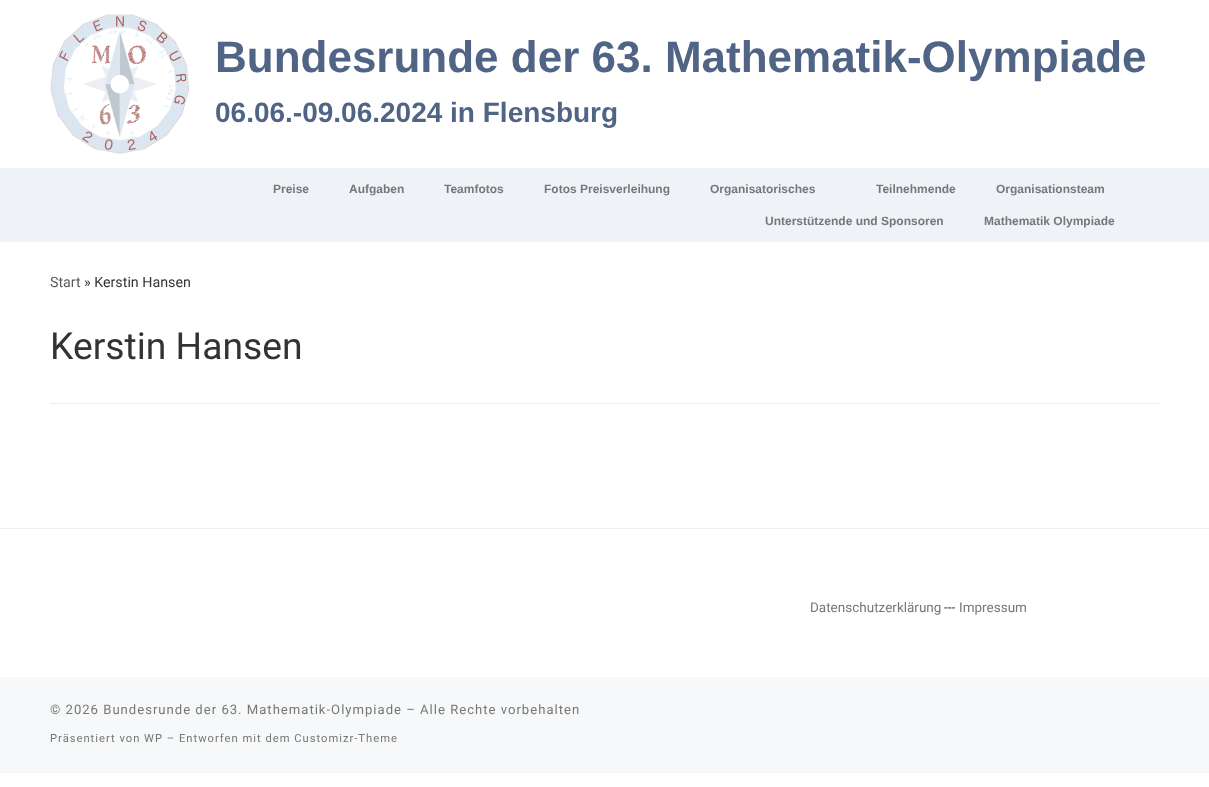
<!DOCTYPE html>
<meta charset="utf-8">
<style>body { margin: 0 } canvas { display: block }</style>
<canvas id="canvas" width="1209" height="787"></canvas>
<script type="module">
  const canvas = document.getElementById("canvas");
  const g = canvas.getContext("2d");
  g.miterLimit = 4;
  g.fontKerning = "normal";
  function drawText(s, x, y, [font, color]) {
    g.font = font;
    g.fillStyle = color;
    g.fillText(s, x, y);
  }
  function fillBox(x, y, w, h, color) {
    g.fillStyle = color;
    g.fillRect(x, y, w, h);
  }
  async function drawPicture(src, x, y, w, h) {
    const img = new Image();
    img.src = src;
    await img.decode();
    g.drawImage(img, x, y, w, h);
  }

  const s1 = ["bold 44px Liberation Sans", "#506485"];
  const s2 = ["bold 28px Liberation Sans", "#506485"];
  const s3 = ["bold 12px Liberation Sans", "#777777"];
  const s4 = ["14.25px Roboto", "#5A5A5A"];
  const s5 = ["14.25px Roboto", "#333333"];
  const s6 = ["37.25px Roboto", "#333333"];
  const s7 = ["13.5px Roboto", "#777777"];
  const s8 = ["13.5px Roboto", "#333333"];
  const s9 = ["13.1px Roboto", "#777777"];
  const s10 = ["11.2px Roboto", "#777777"];

  fillBox(0, 0, 1209, 787, "#FFFFFF");
  await drawPicture("pic1.png", 50, 14, 140, 140);
  drawText("Bundesrunde der 63. Mathematik-Olympiade", 215, 72, s1);
  drawText("06.06.-09.06.2024 in Flensburg", 215, 122, s2);
  fillBox(0, 168, 1209, 74, "#EFF3F8");
  drawText("Preise", 273, 193, s3);
  drawText("Aufgaben", 349, 193, s3);
  drawText("Teamfotos", 444, 193, s3);
  drawText("Fotos Preisverleihung", 544, 193, s3);
  drawText("Organisatorisches", 710, 193, s3);
  drawText("Teilnehmende", 876, 193, s3);
  drawText("Organisationsteam", 996, 193, s3);
  drawText("Unterstützende und Sponsoren", 765, 225, s3);
  drawText("Mathematik Olympiade", 984, 225, s3);
  drawText("Start", 50, 287, s4);
  drawText("» Kerstin Hansen", 84, 287, s5);
  drawText("Kerstin Hansen", 50, 359, s6);
  fillBox(50, 403, 1110, 1, "#ECEEEF");
  fillBox(0, 528, 1209, 1, "#ECEEEF");
  drawText("Datenschutzerklärung", 810, 612, s7);
  drawText("---", 944, 612, s8);
  drawText("Impressum", 959, 612, s7);
  fillBox(0, 677, 1209, 96, "#F7F8F9");
  g.letterSpacing = "1px";
  drawText("© 2026 Bundesrunde der 63. Mathematik-Olympiade – Alle Rechte vorbehalten", 50, 714, s9);
  drawText("Präsentiert von WP – Entworfen mit dem Customizr-Theme", 50, 742, s10);
</script>
